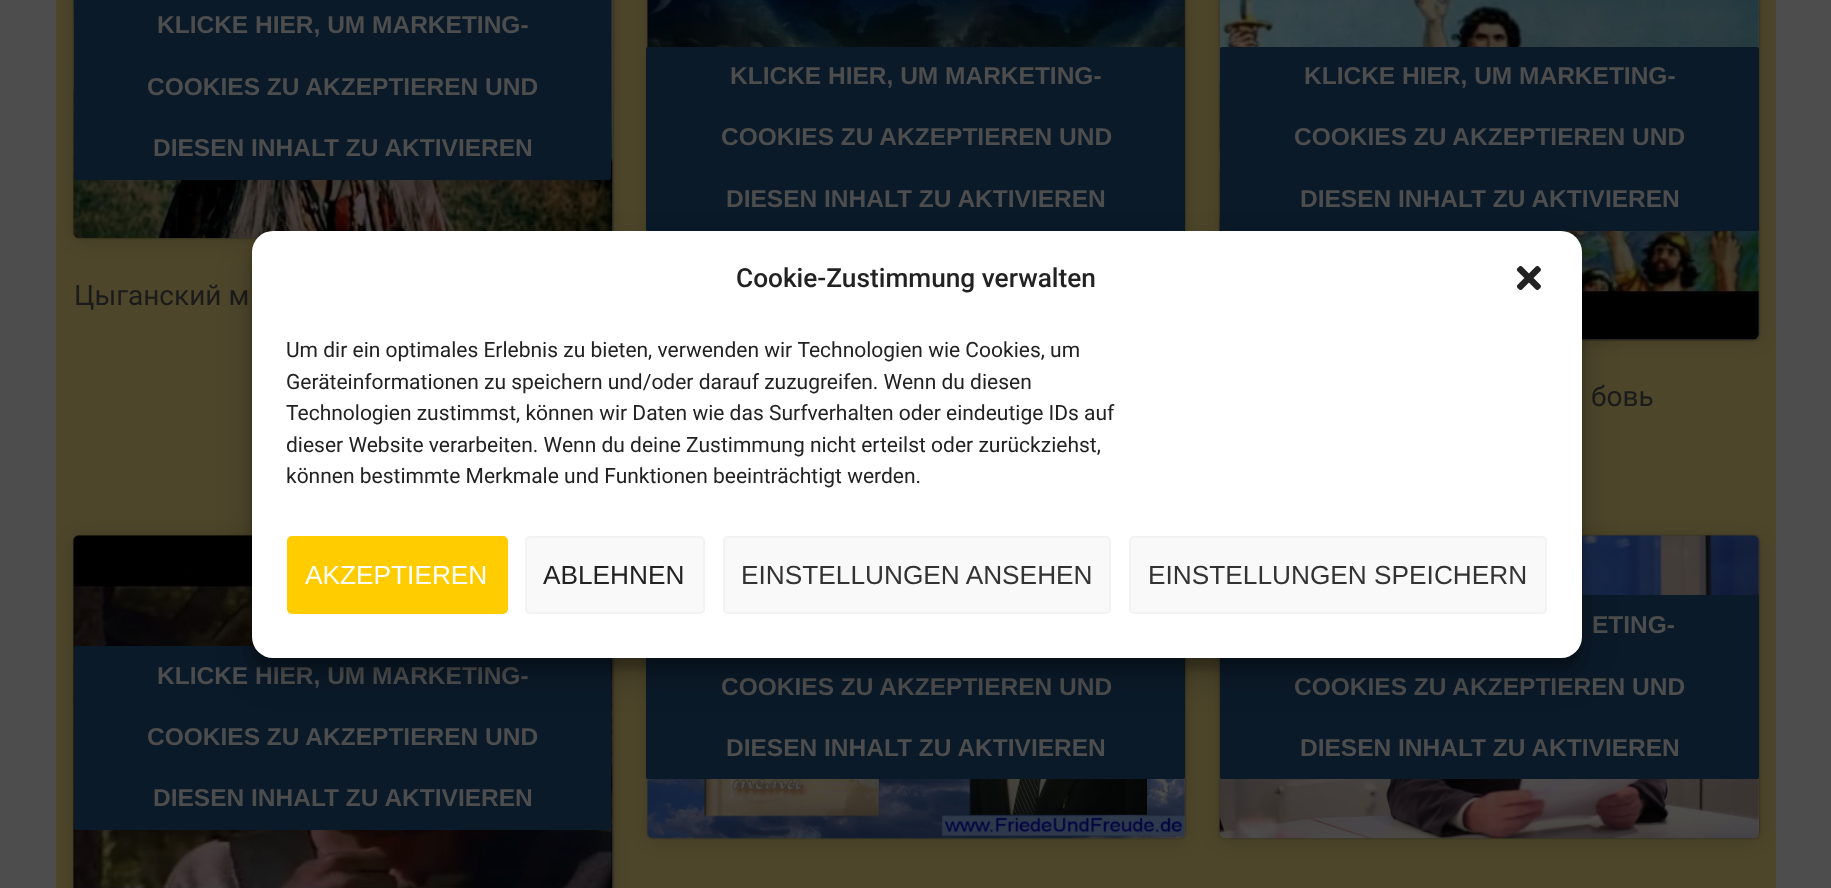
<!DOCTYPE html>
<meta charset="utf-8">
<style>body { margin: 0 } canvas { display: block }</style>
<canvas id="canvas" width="1831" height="888"></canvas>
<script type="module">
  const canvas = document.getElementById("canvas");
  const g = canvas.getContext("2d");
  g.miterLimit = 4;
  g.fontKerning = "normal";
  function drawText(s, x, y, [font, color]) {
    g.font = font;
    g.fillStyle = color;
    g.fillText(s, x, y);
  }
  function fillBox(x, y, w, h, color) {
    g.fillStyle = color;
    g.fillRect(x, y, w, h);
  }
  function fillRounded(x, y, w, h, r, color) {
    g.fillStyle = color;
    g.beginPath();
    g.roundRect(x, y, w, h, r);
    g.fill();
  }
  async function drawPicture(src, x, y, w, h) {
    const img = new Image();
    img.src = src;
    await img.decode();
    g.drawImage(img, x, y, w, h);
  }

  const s1 = ["bold 24.5px Liberation Sans", "#4D4D4D"];
  const s2 = ["28px Roboto", "#1B1B1B"];
  const s3 = ["500 26.25px Roboto", "#222222"];
  const s4 = ["21px Roboto", "#222222"];
  const s5 = ["26.25px Liberation Sans", "#FFFFFF"];
  const s6 = ["26.25px Liberation Sans", "#222222"];
  const s7 = ["26.25px Liberation Sans", "#333333"];

  fillBox(0, 0, 1831, 888, "#4D4D4D");
  fillBox(56, 0, 1720, 888, "#4D462B");
  g.fillStyle = "rgba(0, 0, 0, 0.15)";
  g.filter = "blur(9px)";
  g.beginPath();
  g.roundRect(74, -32, 539, 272, 5);
  g.fill();
  g.filter = "none";
  g.fillStyle = "rgba(0, 0, 0, 0.5)";
  g.filter = "blur(1px)";
  g.beginPath();
  g.roundRect(74, -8, 539, 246, 5);
  g.fill();
  g.filter = "none";
  fillRounded(74, -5, 539, 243, 5, "#4D4D4D");
  await drawPicture("pic1.png", 73, 0, 540, 238);
  fillRounded(74, -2, 537, 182, 2, "#0B1A29");
  drawText("KLICKE HIER, UM MARKETING-", 157, 33, s1);
  drawText("COOKIES ZU AKZEPTIEREN UND", 147, 95, s1);
  drawText("DIESEN INHALT ZU AKTIVIEREN", 153, 156, s1);
  drawText("Цыганский м", 74, 305, s2);
  g.fillStyle = "rgba(0, 0, 0, 0.15)";
  g.filter = "blur(9px)";
  g.beginPath();
  g.roundRect(648, -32, 537, 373, 5);
  g.fill();
  g.filter = "none";
  g.fillStyle = "rgba(0, 0, 0, 0.5)";
  g.filter = "blur(1px)";
  g.beginPath();
  g.roundRect(648, -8, 537, 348, 5);
  g.fill();
  g.filter = "none";
  await drawPicture("pic2.png", 647, 0, 538, 231);
  fillRounded(646, 47, 539, 184, 2, "#0B1A29");
  drawText("KLICKE HIER, UM MARKETING-", 730, 84, s1);
  drawText("COOKIES ZU AKZEPTIEREN UND", 721, 145, s1);
  drawText("DIESEN INHALT ZU AKTIVIEREN", 726, 207, s1);
  g.fillStyle = "rgba(0, 0, 0, 0.15)";
  g.filter = "blur(9px)";
  g.beginPath();
  g.roundRect(1220, -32, 539, 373, 5);
  g.fill();
  g.filter = "none";
  g.fillStyle = "rgba(0, 0, 0, 0.5)";
  g.filter = "blur(1px)";
  g.beginPath();
  g.roundRect(1220, -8, 539, 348, 5);
  g.fill();
  g.filter = "none";
  fillRounded(1220, -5, 539, 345, 5, "#4D4D4D");
  await drawPicture("pic3.png", 1219, 0, 540, 340);
  fillRounded(1220, 47, 539, 184, 2, "#0B1A29");
  drawText("KLICKE HIER, UM MARKETING-", 1304, 84, s1);
  drawText("COOKIES ZU AKZEPTIEREN UND", 1294, 145, s1);
  drawText("DIESEN INHALT ZU AKTIVIEREN", 1300, 207, s1);
  drawText("бовь", 1591, 406, s2);
  g.fillStyle = "rgba(0, 0, 0, 0.15)";
  g.filter = "blur(9px)";
  g.beginPath();
  g.roundRect(74, 537, 539, 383, 5);
  g.fill();
  g.filter = "none";
  g.fillStyle = "rgba(0, 0, 0, 0.5)";
  g.filter = "blur(1px)";
  g.beginPath();
  g.roundRect(74, 536, 539, 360, 5);
  g.fill();
  g.filter = "none";
  fillRounded(74, 536, 539, 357, 5, "#4D4D4D");
  await drawPicture("pic4.png", 73, 535, 540, 353);
  fillRounded(74, 646, 537, 184, 2, "#0B1A29");
  drawText("KLICKE HIER, UM MARKETING-", 157, 684, s1);
  drawText("COOKIES ZU AKZEPTIEREN UND", 147, 745, s1);
  drawText("DIESEN INHALT ZU AKTIVIEREN", 153, 806, s1);
  g.fillStyle = "rgba(0, 0, 0, 0.15)";
  g.filter = "blur(9px)";
  g.beginPath();
  g.roundRect(648, 537, 537, 303, 5);
  g.fill();
  g.filter = "none";
  g.fillStyle = "rgba(0, 0, 0, 0.5)";
  g.filter = "blur(1px)";
  g.beginPath();
  g.roundRect(648, 536, 537, 302, 5);
  g.fill();
  g.filter = "none";
  fillRounded(648, 536, 537, 302, 5, "#4D4D4D");
  await drawPicture("pic5.png", 647, 777, 538, 62);
  fillRounded(646, 595, 539, 184, 2, "#0B1A29");
  drawText("COOKIES ZU AKZEPTIEREN UND", 721, 695, s1);
  drawText("DIESEN INHALT ZU AKTIVIEREN", 726, 756, s1);
  g.fillStyle = "rgba(0, 0, 0, 0.15)";
  g.filter = "blur(9px)";
  g.beginPath();
  g.roundRect(1220, 537, 539, 303, 5);
  g.fill();
  g.filter = "none";
  g.fillStyle = "rgba(0, 0, 0, 0.5)";
  g.filter = "blur(1px)";
  g.beginPath();
  g.roundRect(1220, 536, 539, 302, 5);
  g.fill();
  g.filter = "none";
  fillRounded(1220, 536, 539, 302, 5, "#4D4D4D");
  await drawPicture("pic6.png", 1219, 535, 540, 304);
  fillRounded(1220, 595, 539, 184, 2, "#0B1A29");
  drawText("ETING-", 1592, 633, s1);
  drawText("COOKIES ZU AKZEPTIEREN UND", 1294, 695, s1);
  drawText("DIESEN INHALT ZU AKTIVIEREN", 1300, 756, s1);
  g.fillStyle = "rgba(0, 0, 0, 0.23)";
  g.filter = "blur(5px)";
  g.beginPath();
  g.roundRect(252, 242, 1330, 427, 21);
  g.fill();
  g.filter = "none";
  g.fillStyle = "rgba(0, 0, 0, 0.19)";
  g.filter = "blur(17.5px)";
  g.beginPath();
  g.roundRect(252, 249, 1330, 427, 21);
  g.fill();
  g.filter = "none";
  fillRounded(252, 231, 1330, 427, 21, "#FFFFFF");
  drawText("Cookie-Zustimmung verwalten", 736, 287, s3);
  await drawPicture("pic7.png", 1516, 266, 25, 24);
  drawText("Um dir ein optimales Erlebnis zu bieten, verwenden wir Technologien wie Cookies, um", 286, 357, s4);
  g.save();
  g.beginPath();
  g.rect(287, 334, 1260, 167);
  g.clip();
  drawText("Geräteinformationen zu speichern und/oder darauf zuzugreifen. Wenn du diesen", 286, 389, s4);
  g.restore();
  drawText("Technologien zustimmst, können wir Daten wie das Surfverhalten oder eindeutige IDs auf", 286, 420, s4);
  g.save();
  g.beginPath();
  g.rect(287, 334, 1260, 167);
  g.clip();
  drawText("dieser Website verarbeiten. Wenn du deine Zustimmung nicht erteilst oder zurückziehst,", 286, 452, s4);
  g.restore();
  drawText("können bestimmte Merkmale und Funktionen beeinträchtigt werden.", 286, 483, s4);
  g.fillStyle = "#FFCC00";
  g.beginPath();
  g.roundRect(288, 537, 219, 76, 4);
  g.fill();
  g.strokeStyle = "#FFCC00";
  g.lineWidth = 2;
  g.stroke();
  drawText("AKZEPTIEREN", 305, 584, s5);
  g.fillStyle = "#F9F9F9";
  g.beginPath();
  g.roundRect(526, 537, 178, 76, 4);
  g.fill();
  g.strokeStyle = "#F2F2F2";
  g.stroke();
  drawText("ABLEHNEN", 543, 584, s6);
  g.fillStyle = "#F9F9F9";
  g.beginPath();
  g.roundRect(724, 537, 386, 76, 4);
  g.fill();
  g.stroke();
  drawText("EINSTELLUNGEN ANSEHEN", 741, 584, s7);
  g.fillStyle = "#F9F9F9";
  g.beginPath();
  g.roundRect(1130, 537, 416, 76, 4);
  g.fill();
  g.stroke();
  drawText("EINSTELLUNGEN SPEICHERN", 1148, 584, s7);
</script>
